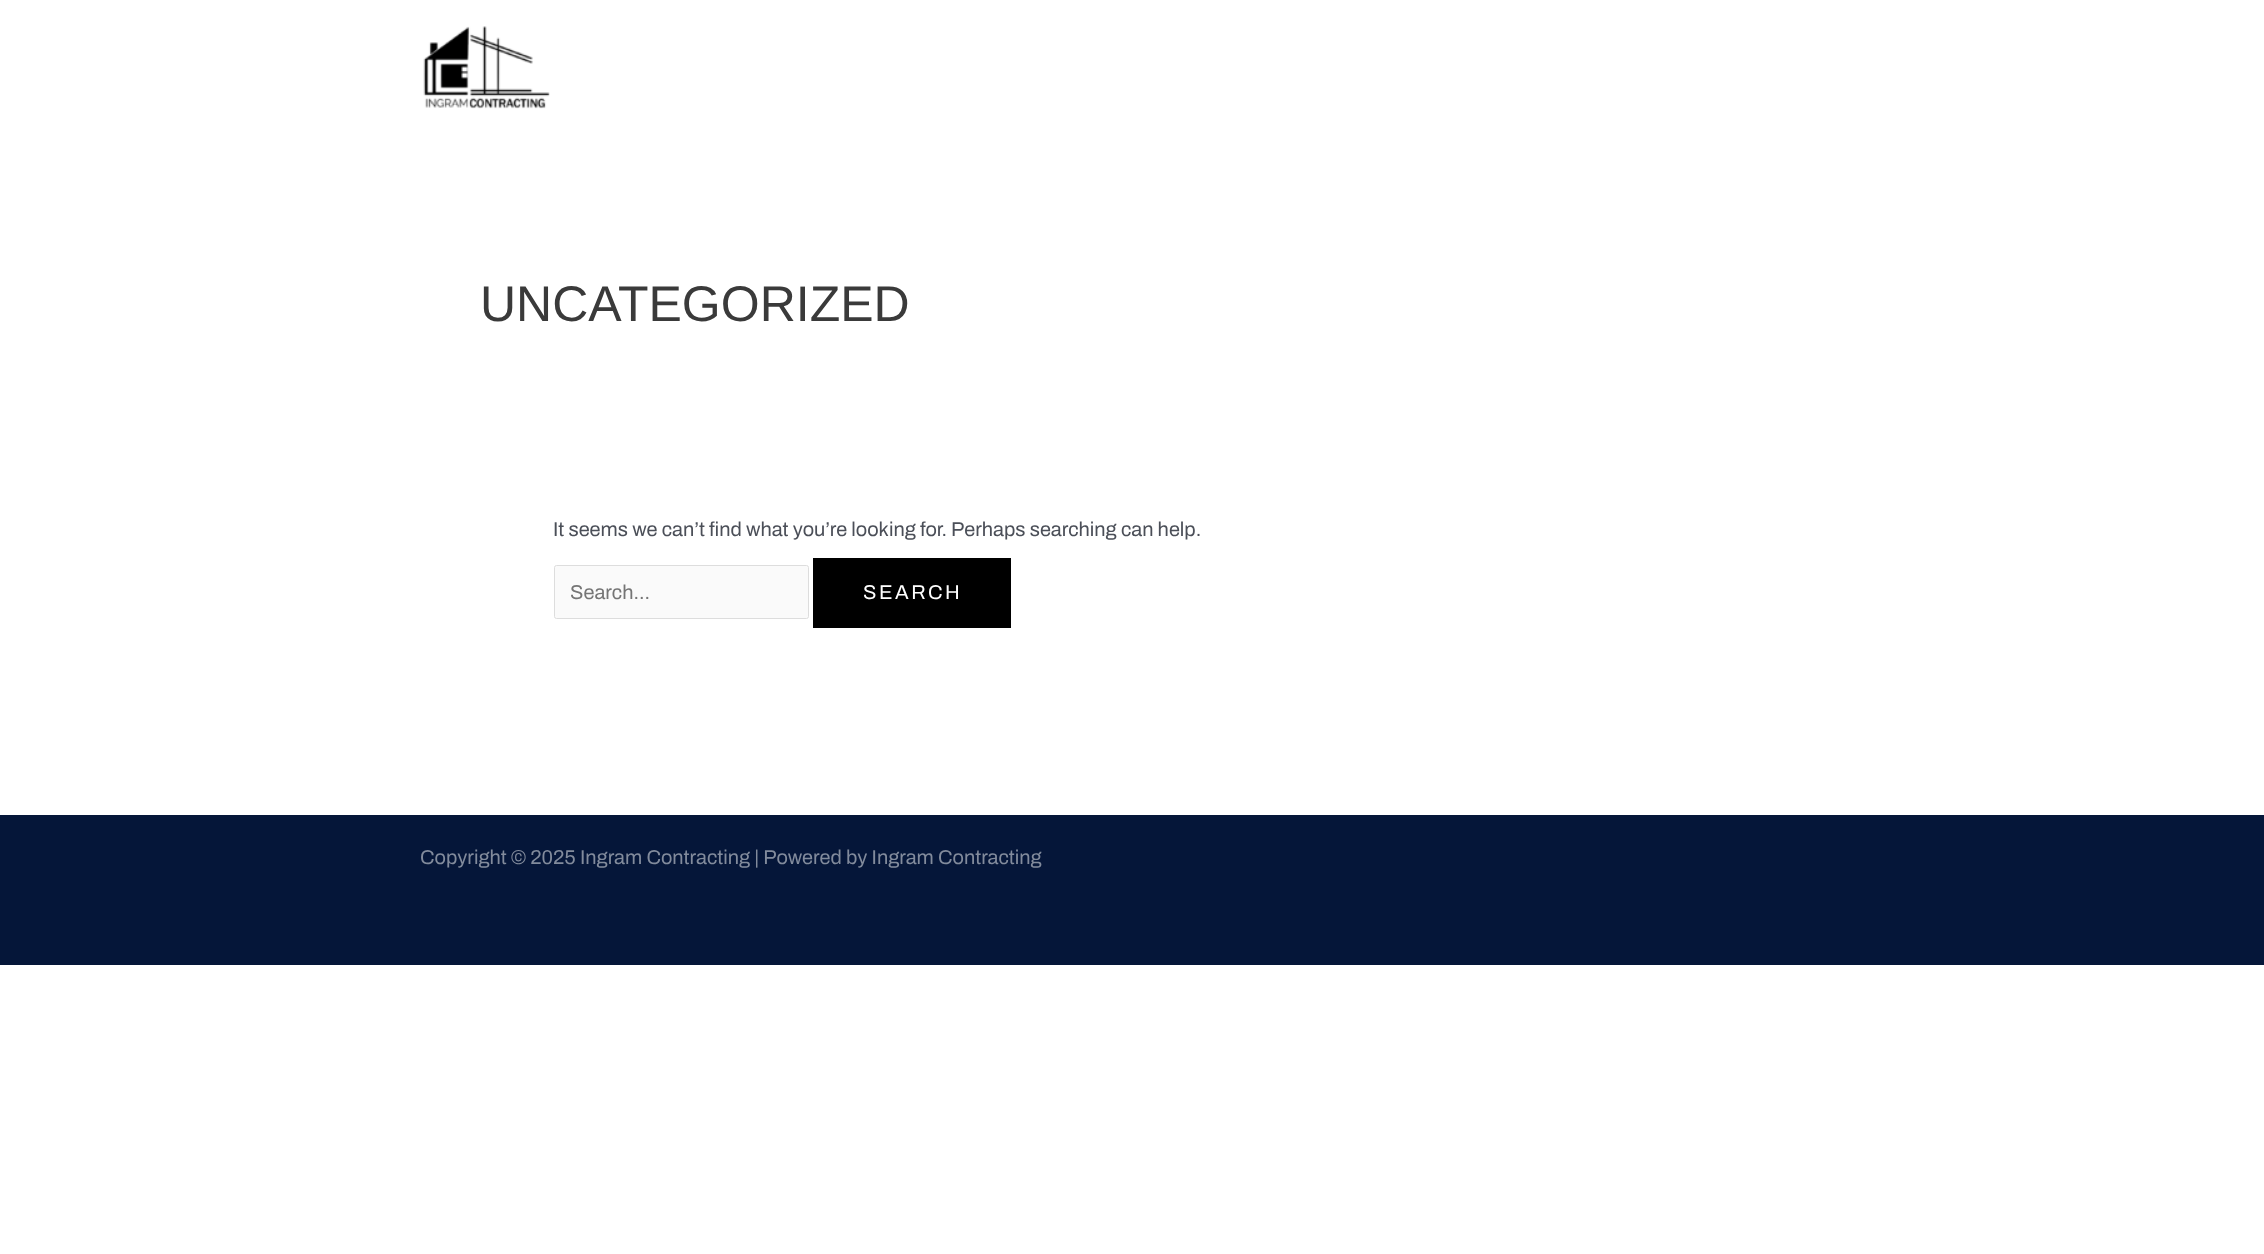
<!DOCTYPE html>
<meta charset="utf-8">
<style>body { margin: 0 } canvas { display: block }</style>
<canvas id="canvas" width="2264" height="1254"></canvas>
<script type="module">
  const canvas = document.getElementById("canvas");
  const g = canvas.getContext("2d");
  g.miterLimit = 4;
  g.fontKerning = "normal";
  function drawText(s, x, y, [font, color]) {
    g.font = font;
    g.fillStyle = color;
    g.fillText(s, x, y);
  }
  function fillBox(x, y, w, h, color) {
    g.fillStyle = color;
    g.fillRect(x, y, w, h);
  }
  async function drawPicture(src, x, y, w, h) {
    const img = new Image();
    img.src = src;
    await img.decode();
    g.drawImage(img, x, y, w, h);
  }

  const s1 = ["50px Liberation Sans", "#3A3A3A"];
  const s2 = ["600 20px Archivo", "#4B4F58"];
  const s3 = ["600 20px Archivo", "#757575"];
  const s4 = ["600 20px Archivo", "#FFFFFF"];
  const s5 = ["600 20px Archivo", "#828B9C"];

  fillBox(0, 0, 2264, 1254, "#FFFFFF");
  await drawPicture("pic1.png", 423, 26, 127, 83);
  drawText("UNCATEGORIZED", 480, 321, s1);
  drawText("It seems we can’t find what you’re looking for. Perhaps searching can help.", 553, 536, s2);
  g.fillStyle = "#FAFAFA";
  g.beginPath();
  g.roundRect(554.5, 565.5, 254, 53, 2);
  g.fill();
  g.strokeStyle = "#DDDDDD";
  g.stroke();
  drawText("Search...", 570, 599, s3);
  fillBox(813, 558, 198, 70, "#000000");
  g.letterSpacing = "2.5px";
  drawText("SEARCH", 863, 599, s4);
  fillBox(0, 815, 2264, 150, "#051639");
  g.letterSpacing = "0px";
  drawText("Copyright © 2025 Ingram Contracting | Powered by Ingram Contracting", 420, 864, s5);
</script>
